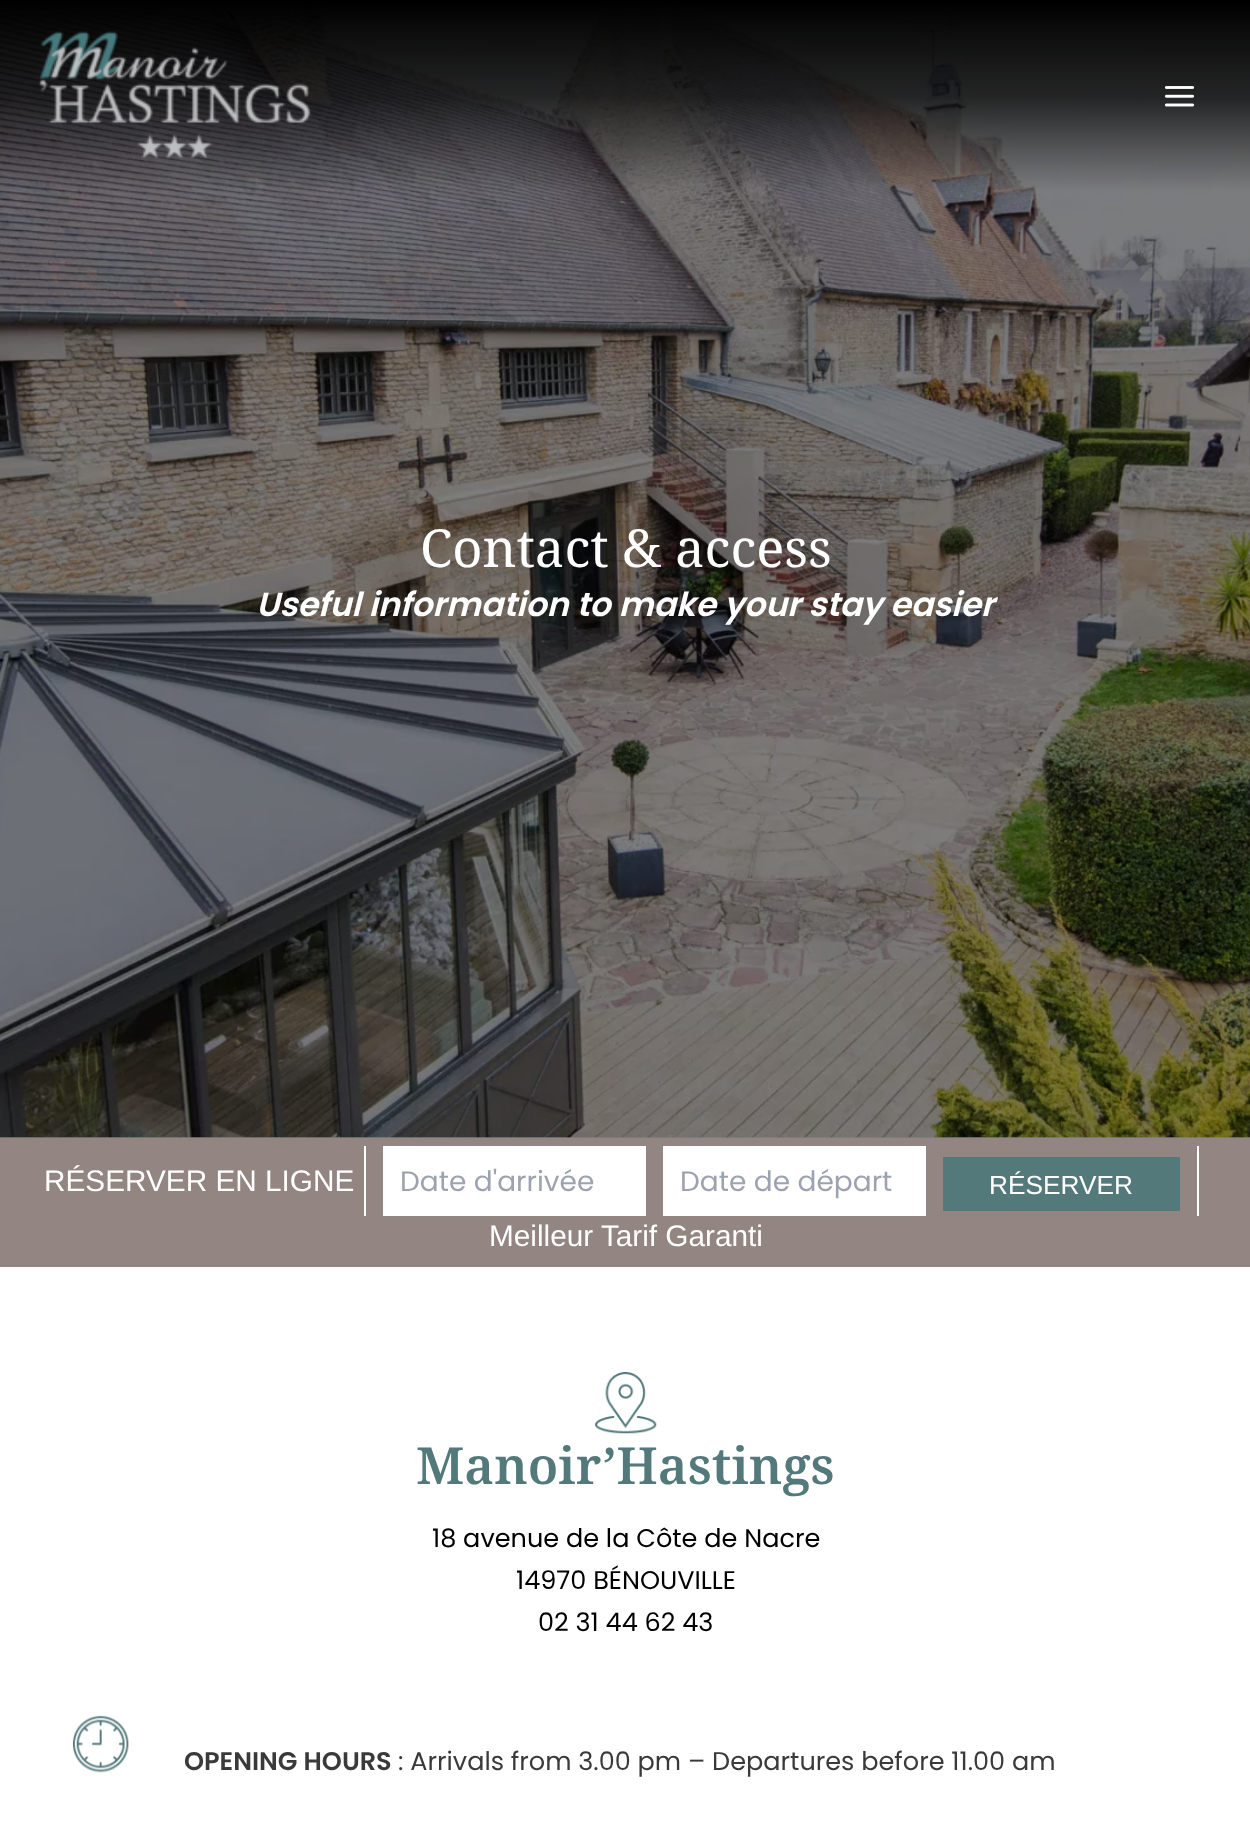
<!DOCTYPE html>
<meta charset="utf-8">
<style>body { margin: 0 } canvas { display: block }</style>
<canvas id="canvas" width="1250" height="1823"></canvas>
<script type="module">
  const canvas = document.getElementById("canvas");
  const g = canvas.getContext("2d");
  g.miterLimit = 4;
  g.fontKerning = "normal";
  function drawText(s, x, y, [font, color]) {
    g.font = font;
    g.fillStyle = color;
    g.fillText(s, x, y);
  }
  function fillBox(x, y, w, h, color) {
    g.fillStyle = color;
    g.fillRect(x, y, w, h);
  }
  async function drawPicture(src, x, y, w, h) {
    const img = new Image();
    img.src = src;
    await img.decode();
    g.drawImage(img, x, y, w, h);
  }

  const s1 = ["52.5px Noto Serif", "#FFFFFF"];
  const s2 = ["italic 600 33.25px Poppins", "#FFFFFF"];
  const s3 = ["29.75px Liberation Sans", "#FFFFFF"];
  const s4 = ["28px Poppins", "#9CA3AF"];
  const s5 = ["26.25px Liberation Sans", "#FFFFFF"];
  const s6 = ["600 51px Noto Serif", "#53797B"];
  const s7 = ["25.55px Poppins", "#000000"];
  const s8 = ["600 25.55px Poppins", "#3A3A3A"];
  const s9 = ["25.55px Poppins", "#3A3A3A"];

  fillBox(0, 0, 1250, 1823, "#FFFFFF");
  fillBox(0, 1137, 1250, 1, "#808080");
  await drawPicture("pic3.png", 0, 0, 1250, 1138);
  await drawPicture("pic1.png", 38, 31, 273, 128);
  await drawPicture("pic2.png", 1164, 86, 31, 21);
  drawText("Contact & access", 420, 567, s1);
  drawText("Useful information to make your stay easier", 256, 616, s2);
  fillBox(0, 1138, 1250, 129, "#938682");
  drawText("RÉSERVER EN LIGNE", 44, 1191, s3);
  fillBox(1197, 1146, 2, 70, "#FFFFFF");
  fillBox(364, 1146, 2, 70, "#FFFFFF");
  fillBox(383, 1146, 263, 70, "#FFFFFF");
  drawText("Date d'arrivée", 400, 1191, s4);
  fillBox(663, 1146, 263, 70, "#FFFFFF");
  drawText("Date de départ", 680, 1191, s4);
  fillBox(943, 1157, 237, 54, "#53797B");
  drawText("RÉSERVER", 989, 1194, s5);
  drawText("Meilleur Tarif Garanti", 489, 1246, s3);
  await drawPicture("pic4.png", 595, 1372, 62, 62);
  drawText("Manoir’Hastings", 416, 1484, s6);
  drawText("18 avenue de la Côte de Nacre", 432, 1547, s7);
  drawText("14970 BÉNOUVILLE", 516, 1589, s7);
  drawText("02 31 44 62 43", 538, 1631, s7);
  await drawPicture("pic5.png", 72, 1715, 57, 58);
  drawText("OPENING HOURS", 184, 1770, s8);
  drawText(": Arrivals from 3.00 pm – Departures before 11.00 am", 398, 1770, s9);
</script>
